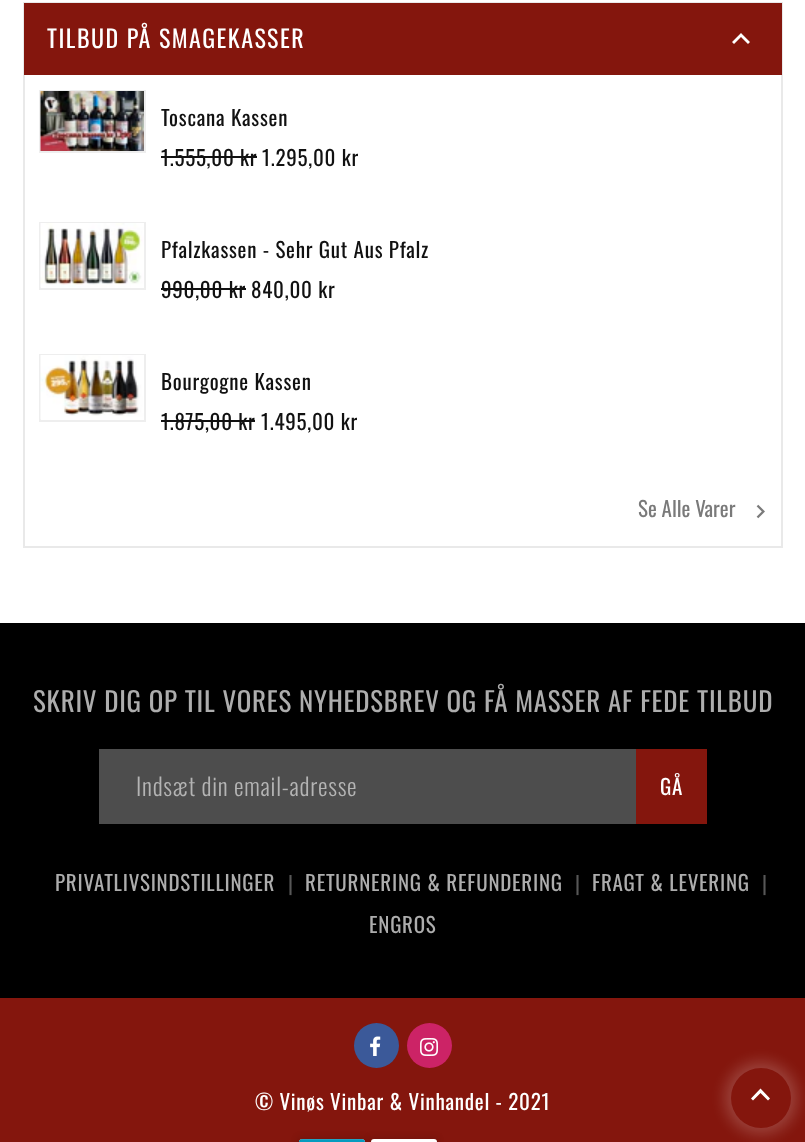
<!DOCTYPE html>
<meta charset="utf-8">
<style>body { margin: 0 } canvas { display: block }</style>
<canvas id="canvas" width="805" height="1142"></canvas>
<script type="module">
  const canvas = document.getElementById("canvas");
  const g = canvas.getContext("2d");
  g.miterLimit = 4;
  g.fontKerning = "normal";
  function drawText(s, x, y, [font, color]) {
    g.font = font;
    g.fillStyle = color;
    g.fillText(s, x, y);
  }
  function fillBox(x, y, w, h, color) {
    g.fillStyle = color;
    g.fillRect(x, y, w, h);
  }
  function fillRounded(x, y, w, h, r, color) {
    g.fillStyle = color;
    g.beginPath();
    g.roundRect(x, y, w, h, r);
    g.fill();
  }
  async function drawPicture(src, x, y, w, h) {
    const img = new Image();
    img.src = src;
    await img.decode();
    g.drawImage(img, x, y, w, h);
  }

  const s1 = ["24px Oswald", "#FFFFFF"];
  const s2 = ["21px Oswald", "#111111"];
  const s3 = ["21px Oswald", "#7A7A7A"];
  const s4 = ["27px Oswald", "#ADADAD"];
  const s5 = ["300 24px Oswald", "#B4B4B4"];
  const s6 = ["21px Oswald", "#FFFFFF"];
  const s7 = ["21px Oswald", "#ADADAD"];
  const s8 = ["21px Oswald", "#575757"];

  fillBox(0, 0, 805, 1142, "#FFFFFF");
  g.strokeStyle = "#E9E9E9";
  g.lineWidth = 2;
  g.strokeRect(24, 3, 758, 544);
  fillBox(24, 3, 758, 72, "#84160D");
  g.letterSpacing = "1.5px";
  drawText("TILBUD PÅ SMAGEKASSER", 47, 48, s1);
  g.beginPath();
  g.moveTo(734, 44);
  g.lineTo(732, 42);
  g.lineTo(741, 33);
  g.lineTo(750, 42);
  g.lineTo(748, 44);
  g.lineTo(741, 37);
  g.closePath();
  g.fill();
  g.strokeStyle = "#EEEEEE";
  g.strokeRect(40, 91, 105, 61);
  await drawPicture("pic1.png", 40, 91, 104, 60);
  g.letterSpacing = "0.75px";
  drawText("Toscana Kassen", 161, 126, s2);
  drawText("1.555,00 kr", 161, 166, s2);
  fillBox(161, 156, 96, 2, "#111111");
  drawText("1.295,00 kr", 262, 166, s2);
  g.strokeRect(40, 223, 105, 66);
  await drawPicture("pic2.png", 40, 223, 104, 65);
  drawText("Pfalzkassen - Sehr Gut Aus Pfalz", 161, 258, s2);
  drawText("990,00 kr", 161, 298, s2);
  fillBox(161, 288, 85, 2, "#111111");
  drawText("840,00 kr", 251, 298, s2);
  g.strokeRect(40, 355, 105, 66);
  await drawPicture("pic3.png", 40, 355, 104, 65);
  drawText("Bourgogne Kassen", 161, 390, s2);
  drawText("1.875,00 kr", 161, 430, s2);
  fillBox(161, 420, 94, 2, "#111111");
  drawText("1.495,00 kr", 261, 430, s2);
  g.letterSpacing = "0px";
  drawText("Se Alle Varer", 638, 517, s3);
  await drawPicture("pic4.png", 756, 504, 9, 15);
  fillBox(0, 623, 805, 375, "#000000");
  g.letterSpacing = "0.75px";
  drawText("SKRIV DIG OP TIL VORES NYHEDSBREV OG FÅ MASSER AF FEDE TILBUD", 33, 712, s4);
  fillBox(99, 749, 537, 75, "#4D4D4D");
  drawText("Indsæt din email-adresse", 136, 796, s5);
  fillBox(636, 749, 71, 75, "#84160D");
  drawText("GÅ", 660, 795, s6);
  drawText("PRIVATLIVSINDSTILLINGER", 55, 891, s7);
  drawText("|", 288, 892, s8);
  drawText("RETURNERING & REFUNDERING", 305, 891, s7);
  drawText("|", 575, 892, s8);
  drawText("FRAGT & LEVERING", 592, 891, s7);
  drawText("|", 762, 892, s8);
  drawText("ENGROS", 369, 933, s7);
  fillBox(0, 998, 805, 144, "#84160D");
  g.fillStyle = "#3B5999";
  g.beginPath();
  g.arc(376.5, 1045.5, 22.5, 0, Math.PI * 2);
  g.fill();
  await drawPicture("pic5.png", 370, 1036, 11, 20);
  g.fillStyle = "#CC2366";
  g.beginPath();
  g.arc(429.5, 1045.5, 22.5, 0, Math.PI * 2);
  g.fill();
  await drawPicture("pic6.png", 420, 1038, 18, 18);
  drawText("© Vinøs Vinbar & Vinhandel - 2021", 255, 1110, s6);
  g.fillStyle = "rgba(0, 0, 0, 0.1)";
  g.filter = "blur(3px)";
  g.beginPath();
  g.rect(297, 1137, 69, 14);
  g.fill();
  g.filter = "none";
  g.filter = "blur(3px)";
  g.beginPath();
  g.rect(369, 1137, 69, 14);
  g.fill();
  g.filter = "none";
  await drawPicture("pic7.png", 299, 1139, 66, 3);
  fillRounded(371, 1139, 66, 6, 3, "#FFFFFF");
  g.fillStyle = "rgba(255, 255, 255, 0.2)";
  g.filter = "blur(7.5px)";
  g.beginPath();
  g.roundRect(725, 1062, 72, 72, 36);
  g.fill();
  g.filter = "none";
  g.fillStyle = "#84160D";
  g.beginPath();
  g.arc(761, 1098, 30, 0, Math.PI * 2);
  g.fill();
  g.fillStyle = "#FFFFFF";
  g.beginPath();
  g.moveTo(760.5, 1088.5);
  g.lineTo(770, 1098.5);
  g.lineTo(768, 1100.5);
  g.lineTo(760.5, 1093);
  g.lineTo(753, 1100.5);
  g.lineTo(751, 1098.5);
  g.closePath();
  g.fill();
</script>
